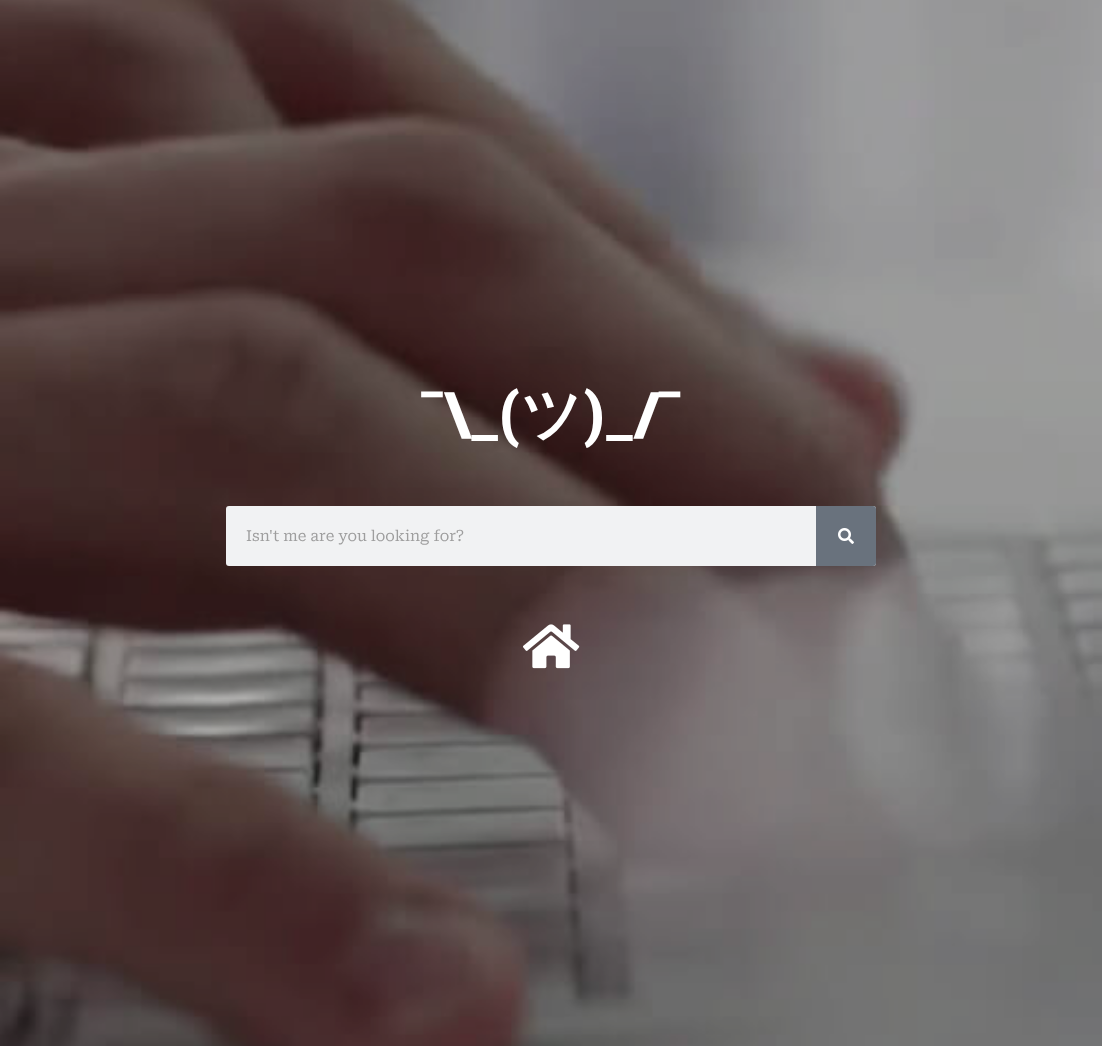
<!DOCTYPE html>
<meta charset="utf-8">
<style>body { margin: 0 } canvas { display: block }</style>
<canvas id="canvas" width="1102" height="1046"></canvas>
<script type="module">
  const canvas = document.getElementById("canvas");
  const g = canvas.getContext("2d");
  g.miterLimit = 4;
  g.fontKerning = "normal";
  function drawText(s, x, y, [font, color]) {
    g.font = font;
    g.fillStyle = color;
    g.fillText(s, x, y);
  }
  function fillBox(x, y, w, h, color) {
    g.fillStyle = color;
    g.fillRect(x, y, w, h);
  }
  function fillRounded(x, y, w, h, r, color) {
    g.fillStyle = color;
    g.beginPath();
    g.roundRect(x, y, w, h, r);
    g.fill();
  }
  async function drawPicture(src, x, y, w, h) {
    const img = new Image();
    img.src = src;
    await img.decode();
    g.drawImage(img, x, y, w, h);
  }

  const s1 = ["900 60px Roboto Slab", "#FFFFFF"];
  const s2 = ["bold 60px WenQuanYi Zen Hei", "#FFFFFF"];
  const s3 = ["15px Roboto Serif", "#9E9E9E"];

  fillBox(0, 0, 1102, 1046, "#FFFFFF");
  await drawPicture("pic1.png", 0, 0, 1102, 1046);
  drawText("¯\\_(", 420, 435, s1);
  drawText("ツ", 521, 435, s2);
  drawText(")_/¯", 582, 435, s1);
  fillRounded(226, 506, 650, 60, 3, "#F1F2F3");
  drawText("Isn't me are you looking for?", 246, 541, s3);
  g.fillStyle = "#69727D";
  g.beginPath();
  g.roundRect(816, 506, 60, 60, [0, 3, 3, 0]);
  g.fill();
  await drawPicture("pic2.png", 838, 528, 16, 16);
  await drawPicture("pic3.png", 523, 624, 57, 45);
</script>
